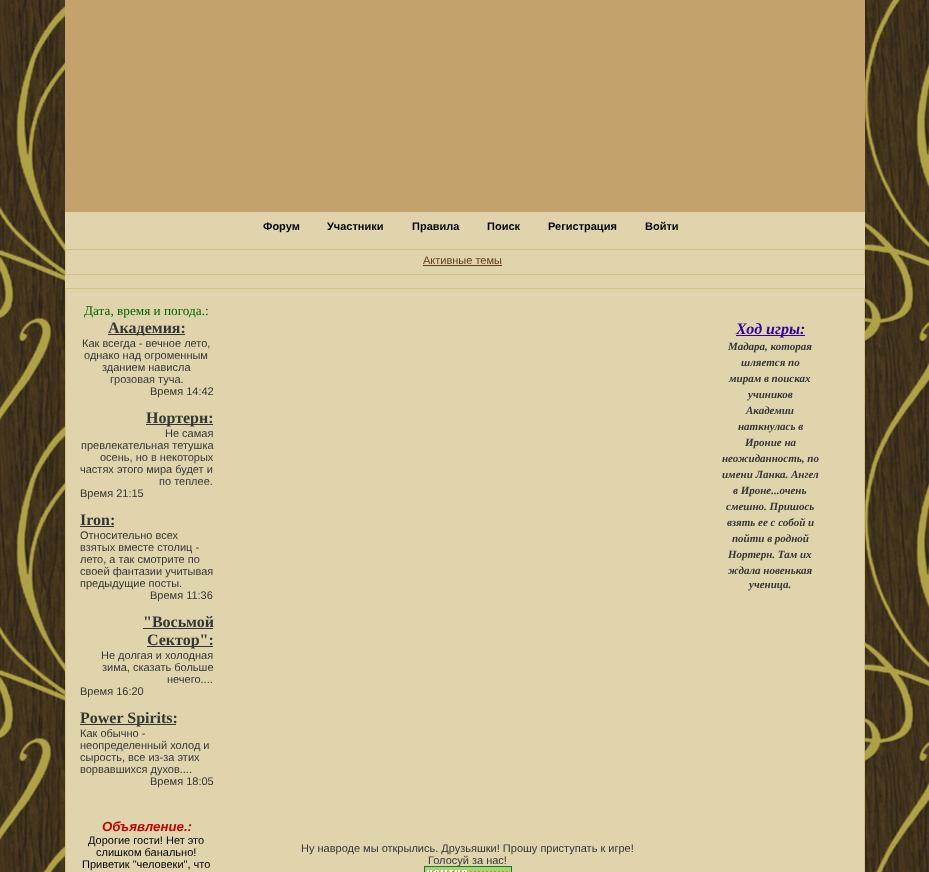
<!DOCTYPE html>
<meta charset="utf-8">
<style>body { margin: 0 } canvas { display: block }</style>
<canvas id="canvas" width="929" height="872"></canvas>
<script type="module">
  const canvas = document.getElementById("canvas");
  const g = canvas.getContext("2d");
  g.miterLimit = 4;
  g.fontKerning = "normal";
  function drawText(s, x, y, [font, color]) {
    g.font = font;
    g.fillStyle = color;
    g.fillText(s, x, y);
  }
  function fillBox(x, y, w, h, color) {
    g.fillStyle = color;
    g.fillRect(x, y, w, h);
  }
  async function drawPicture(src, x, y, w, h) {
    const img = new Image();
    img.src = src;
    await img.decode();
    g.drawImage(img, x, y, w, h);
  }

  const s1 = ["bold 11px Liberation Sans", "#000000"];
  const s2 = ["11px Liberation Sans", "#613D1D"];
  const s3 = ["13.25px Liberation Serif", "#006600"];
  const s4 = ["bold 16px Liberation Serif", "#343635"];
  const s5 = ["11px Liberation Sans", "#343635"];
  const s6 = ["italic bold 16px Liberation Serif", "#330099"];
  const s7 = ["italic bold 11px Liberation Serif", "#343635"];
  const s8 = ["italic bold 13.25px Liberation Sans", "#CC0000"];
  const s9 = ["11px Liberation Sans", "#000000"];

  fillBox(0, 0, 929, 872, "#FFFFFF");
  await drawPicture("pic1.png", 0, 0, 929, 872);
  fillBox(65, 212, 800, 660, "#E0D4AC");
  fillBox(65, 0, 800, 212, "#C4A26B");
  drawText("Форум", 263, 230, s1);
  drawText("Участники", 327, 230, s1);
  drawText("Правила", 412, 230, s1);
  drawText("Поиск", 487, 230, s1);
  drawText("Регистрация", 548, 230, s1);
  drawText("Войти", 645, 230, s1);
  fillBox(65, 275, 800, 2, "#DBD0A9");
  g.strokeStyle = "#D2C183";
  g.strokeRect(65.5, 249.5, 799, 25);
  drawText("Активные темы", 423, 264, s2);
  fillBox(423, 265, 79, 1, "#613D1D");
  g.strokeRect(65.5, 288.5, 799, 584);
  drawText("Дата, время и погода.:", 84, 315, s3);
  fillBox(108, 334, 77, 1, "#343635");
  drawText("Академия:", 108, 333, s4);
  drawText("Как всегда - вечное лето,", 82, 347, s5);
  drawText("однако над огроменным", 84, 359, s5);
  drawText("зданием нависла", 102, 371, s5);
  drawText("грозовая туча.", 110, 383, s5);
  drawText("Время 14:42", 150, 395, s5);
  fillBox(146, 424, 67, 1, "#343635");
  drawText("Нортерн:", 146, 423, s4);
  drawText("Не самая", 165, 437, s5);
  drawText("превлекательная тетушка", 81, 449, s5);
  drawText("осень, но в некоторых", 100, 461, s5);
  drawText("частях этого мира будет и", 80, 473, s5);
  drawText("по теплее.", 159, 485, s5);
  drawText("Время 21:15", 80, 497, s5);
  drawText("Iron:", 80, 525, s4);
  fillBox(80, 526, 34, 1, "#343635");
  drawText("Относительно всех", 80, 539, s5);
  drawText("взятых вместе столиц -", 80, 551, s5);
  drawText("лето, а так смотрите по", 80, 563, s5);
  drawText("своей фантазии учитывая", 80, 575, s5);
  drawText("предыдущие посты.", 80, 587, s5);
  drawText("Время 11:36", 150, 599, s5);
  drawText("\"Восьмой", 143, 627, s4);
  fillBox(143, 628, 70, 1, "#343635");
  fillBox(147, 646, 66, 1, "#343635");
  drawText("Сектор\":", 147, 645, s4);
  drawText("Не долгая и холодная", 101, 659, s5);
  drawText("зима, сказать больше", 102, 671, s5);
  drawText("нечего....", 167, 683, s5);
  drawText("Время 16:20", 80, 695, s5);
  fillBox(80, 724, 96, 1, "#343635");
  drawText("Power Spirits:", 80, 723, s4);
  drawText("Как обычно -", 80, 737, s5);
  drawText("неопределенный холод и", 80, 749, s5);
  drawText("сырость, все из-за этих", 80, 761, s5);
  drawText("ворвавшихся духов....", 80, 773, s5);
  drawText("Время 18:05", 150, 785, s5);
  fillBox(736, 335, 69, 1, "#330099");
  drawText("Ход игры:", 736, 334, s6);
  drawText("Мадара, которая", 728, 350, s7);
  drawText("шляется по", 741, 366, s7);
  drawText("мирам в поисках", 729, 382, s7);
  drawText("учиников", 748, 398, s7);
  drawText("Академии", 746, 414, s7);
  drawText("наткнулась в", 738, 430, s7);
  drawText("Ироние на", 745, 446, s7);
  drawText("неожиданность, по", 722, 462, s7);
  drawText("имени Ланка. Ангел", 722, 478, s7);
  drawText("в Ироне...очень", 733, 494, s7);
  drawText("смешно. Пришось", 726, 510, s7);
  drawText("взять ее с собой и", 727, 526, s7);
  drawText("пойти в родной", 732, 542, s7);
  drawText("Нортерн. Там их", 728, 558, s7);
  drawText("ждала новенькая", 728, 574, s7);
  drawText("ученица.", 749, 588, s7);
  drawText("Ну навроде мы открылись. Друзьяшки! Прошу приступать к игре!", 301, 852, s5);
  drawText("Голосуй за нас!", 428, 864, s5);
  await drawPicture("pic2.png", 424, 866, 88, 6);
  drawText("Объявление.:", 102, 831, s8);
  drawText("Дорогие гости! Нет это", 88, 844, s9);
  drawText("слишком банально!", 96, 856, s9);
  drawText("Приветик \"человеки\", что", 82, 868, s9);
</script>
